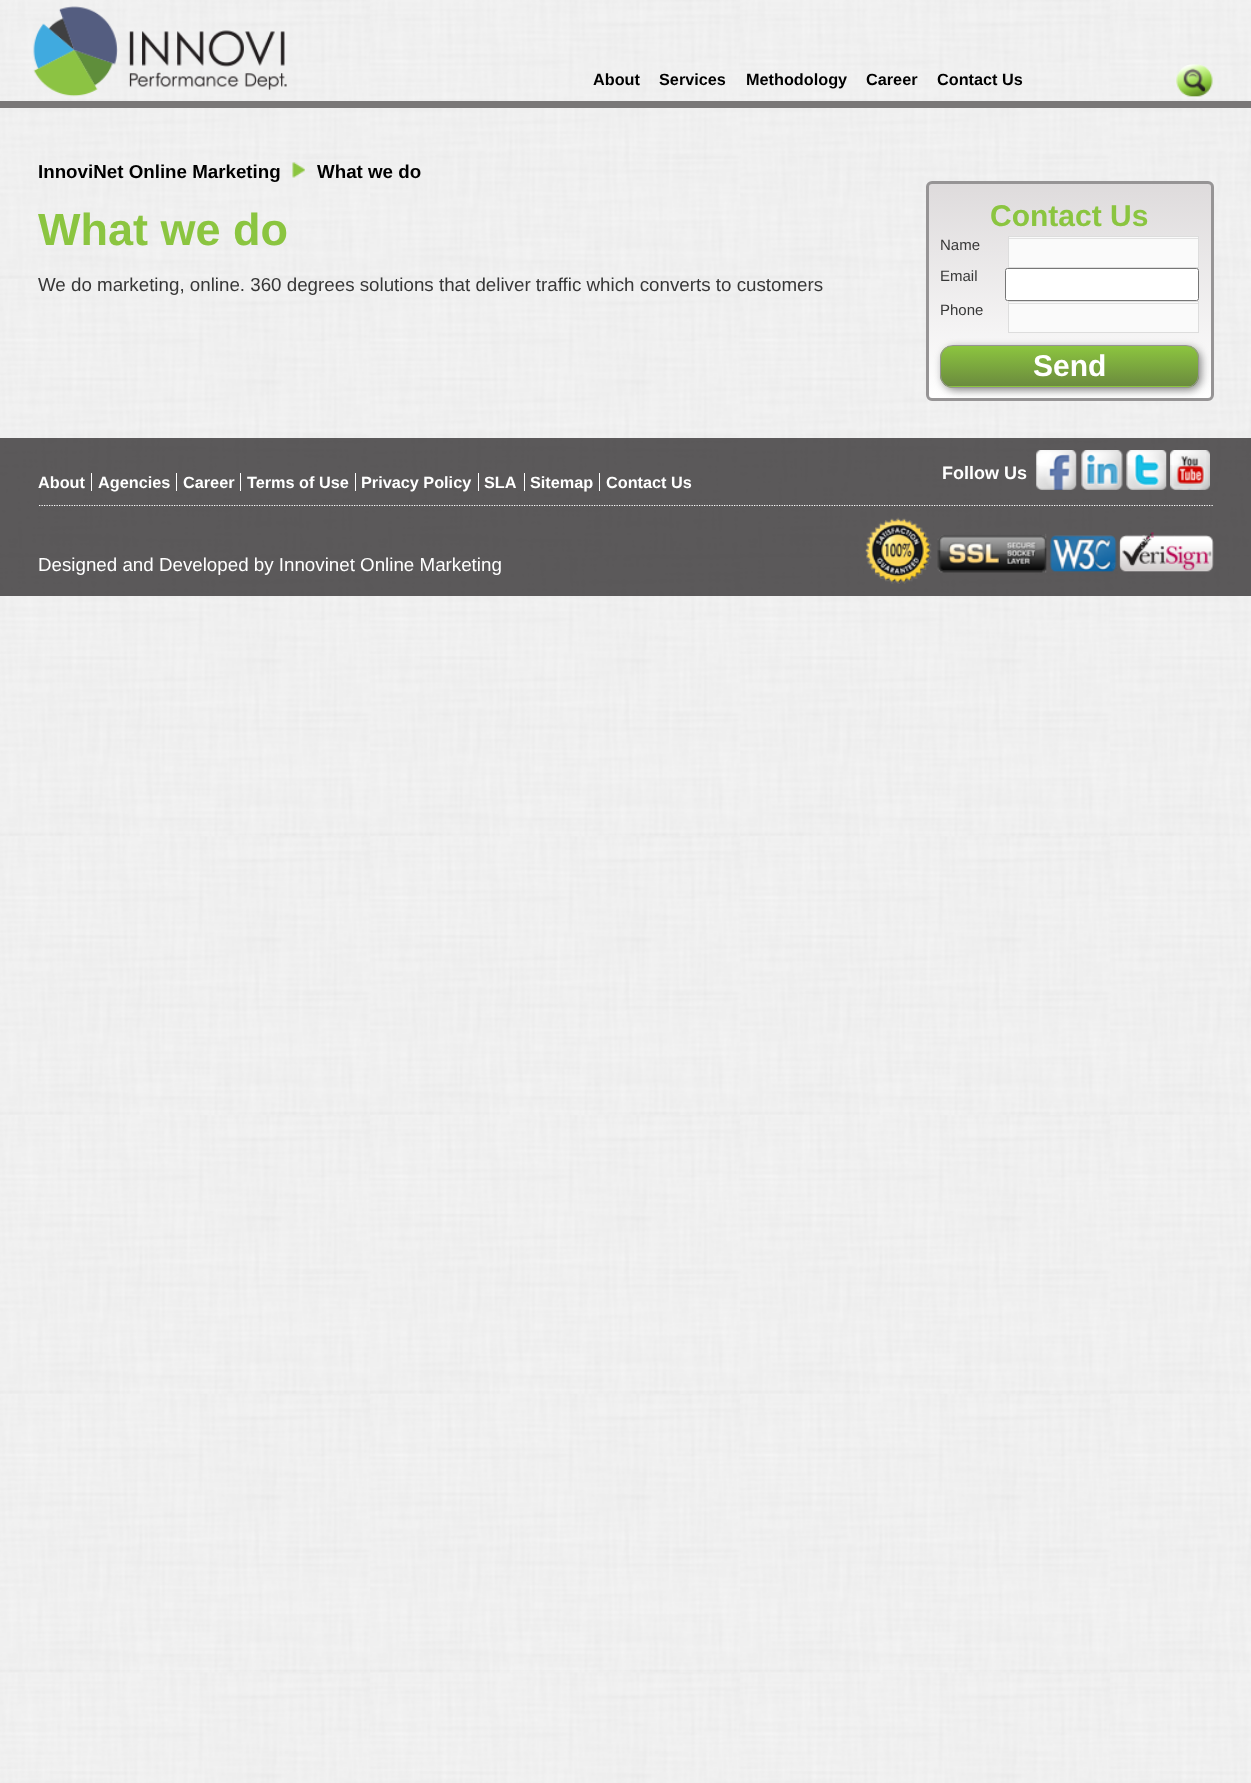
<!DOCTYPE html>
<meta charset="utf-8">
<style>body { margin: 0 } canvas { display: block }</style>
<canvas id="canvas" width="1251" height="1783"></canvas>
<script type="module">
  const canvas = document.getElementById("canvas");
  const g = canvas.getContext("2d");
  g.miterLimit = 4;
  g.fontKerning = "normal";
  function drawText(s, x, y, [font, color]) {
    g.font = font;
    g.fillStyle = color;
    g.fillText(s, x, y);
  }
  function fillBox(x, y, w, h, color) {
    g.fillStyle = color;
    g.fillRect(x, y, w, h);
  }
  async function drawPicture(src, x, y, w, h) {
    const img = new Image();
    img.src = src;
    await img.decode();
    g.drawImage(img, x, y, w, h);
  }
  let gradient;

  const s1 = ["bold 16.25px Liberation Sans", "#000000"];
  const s2 = ["bold 18.75px Liberation Sans", "#000000"];
  const s3 = ["bold 45px Liberation Sans", "#8BC540"];
  const s4 = ["18.75px Liberation Sans", "#373737"];
  const s5 = ["bold 30px Liberation Sans", "#8BC540"];
  const s6 = ["15px Liberation Sans", "#373737"];
  const s7 = ["bold 30px Liberation Sans", "#FFFFFF"];
  const s8 = ["bold 18px Liberation Sans", "#FFFFFF"];
  const s9 = ["bold 16.25px Liberation Sans", "#FFFFFF"];
  const s10 = ["18.75px Liberation Sans", "#FFFFFF"];

  fillBox(0, 0, 1251, 1783, "#FFFFFF");
  await drawPicture("pic1.png", 0, 0, 1251, 1783);
  fillBox(0, 101, 1251, 7, "#797777");
  await drawPicture("pic2.png", 33, 6, 254, 91);
  drawText("About", 593, 85, s1);
  drawText("Services", 659, 85, s1);
  drawText("Methodology", 746, 85, s1);
  drawText("Career", 866, 85, s1);
  drawText("Contact Us", 937, 85, s1);
  await drawPicture("pic3.png", 1176, 64, 37, 33);
  drawText("InnoviNet Online Marketing", 38, 178, s2);
  await drawPicture("pic4.png", 292, 162, 13, 16);
  drawText("What we do", 317, 178, s2);
  drawText("What we do", 38, 245, s3);
  drawText("We do marketing, online. 360 degrees solutions that deliver traffic which converts to customers", 38, 291, s4);
  g.save();
  g.beginPath();
  g.roundRect(926, 181, 288, 220, 6);
  g.clip();
  gradient = g.createLinearGradient(929, 184, 929, 399);
  gradient.addColorStop(0, "#DEDBDC");
  gradient.addColorStop(1, "#FFFFFF");
  g.fillStyle = gradient;
  g.fillRect(926, 184, 288, 215);
  g.restore();
  g.beginPath();
  g.roundRect(927.5, 182.5, 285, 217, 4.5);
  g.strokeStyle = "#969495";
  g.lineWidth = 3;
  g.stroke();
  drawText("Contact Us", 990, 226, s5);
  drawText("Name", 940, 250, s6);
  fillBox(1009, 237, 189, 30, "#FAFAFA");
  fillBox(1009, 238, 189, 1, "#E1E1E1");
  g.strokeStyle = "#DDDDDD";
  g.lineWidth = 1;
  g.strokeRect(1008.5, 236.5, 190, 31);
  drawText("Email", 940, 281, s6);
  g.fillStyle = "#FFFFFF";
  g.beginPath();
  g.roundRect(1005.5, 268.5, 193, 32, 2);
  g.fill();
  g.strokeStyle = "#767676";
  g.stroke();
  drawText("Phone", 940, 315, s6);
  fillBox(1009, 302, 189, 30, "#FAFAFA");
  fillBox(1009, 303, 189, 1, "#E1E1E1");
  g.strokeStyle = "#DDDDDD";
  g.strokeRect(1008.5, 301.5, 190, 31);
  g.fillStyle = "#808080";
  g.filter = "blur(4px)";
  g.beginPath();
  g.roundRect(943, 348, 258, 42, 13);
  g.fill();
  g.filter = "none";
  g.save();
  g.beginPath();
  g.roundRect(940, 345, 259, 43, 13);
  g.clip();
  gradient = g.createLinearGradient(941, 346, 941, 386);
  gradient.addColorStop(0, "#8CC53F");
  gradient.addColorStop(1, "#6B8B3E");
  g.fillStyle = gradient;
  g.fillRect(940, 346, 259, 40);
  gradient = g.createLinearGradient(941, 386, 941, 426);
  gradient.addColorStop(0, "#8CC53F");
  gradient.addColorStop(1, "#6B8B3E");
  g.fillStyle = gradient;
  g.fillRect(940, 386, 259, 2);
  g.restore();
  g.beginPath();
  g.roundRect(940.5, 345.5, 258, 42, 12.5);
  g.strokeStyle = "#969495";
  g.stroke();
  drawText("Send", 1033, 376, s7);
  fillBox(0, 438, 1251, 158, "rgba(60, 58, 59, 0.83)");
  drawText("Follow Us", 942, 479, s8);
  await drawPicture("pic5.png", 1036, 450, 41, 40);
  await drawPicture("pic6.png", 1081, 450, 42, 40);
  await drawPicture("pic7.png", 1126, 450, 41, 40);
  await drawPicture("pic8.png", 1170, 450, 40, 40);
  drawText("About", 38, 488, s9);
  fillBox(91, 473, 1, 18, "#FFFFFF");
  drawText("Agencies", 98, 488, s9);
  fillBox(176, 473, 1, 18, "#FFFFFF");
  drawText("Career", 183, 488, s9);
  fillBox(240, 473, 1, 18, "#FFFFFF");
  drawText("Terms of Use", 247, 488, s9);
  fillBox(355, 473, 1, 18, "#FFFFFF");
  drawText("Privacy Policy", 361, 488, s9);
  fillBox(478, 473, 1, 18, "#FFFFFF");
  drawText("SLA", 484, 488, s9);
  fillBox(524, 473, 1, 18, "#FFFFFF");
  drawText("Sitemap", 530, 488, s9);
  fillBox(599, 473, 1, 18, "#FFFFFF");
  drawText("Contact Us", 606, 488, s9);
  g.beginPath();
  g.moveTo(39, 505.5);
  g.lineTo(1214, 505.5);
  g.strokeStyle = "#FFFFFF";
  g.lineWidth = 1.2;
  g.setLineDash([1.25, 1.25]);
  g.stroke();
  drawText("Designed and Developed by Innovinet Online Marketing", 38, 571, s10);
  await drawPicture("pic9.png", 865, 517, 349, 67);
</script>
